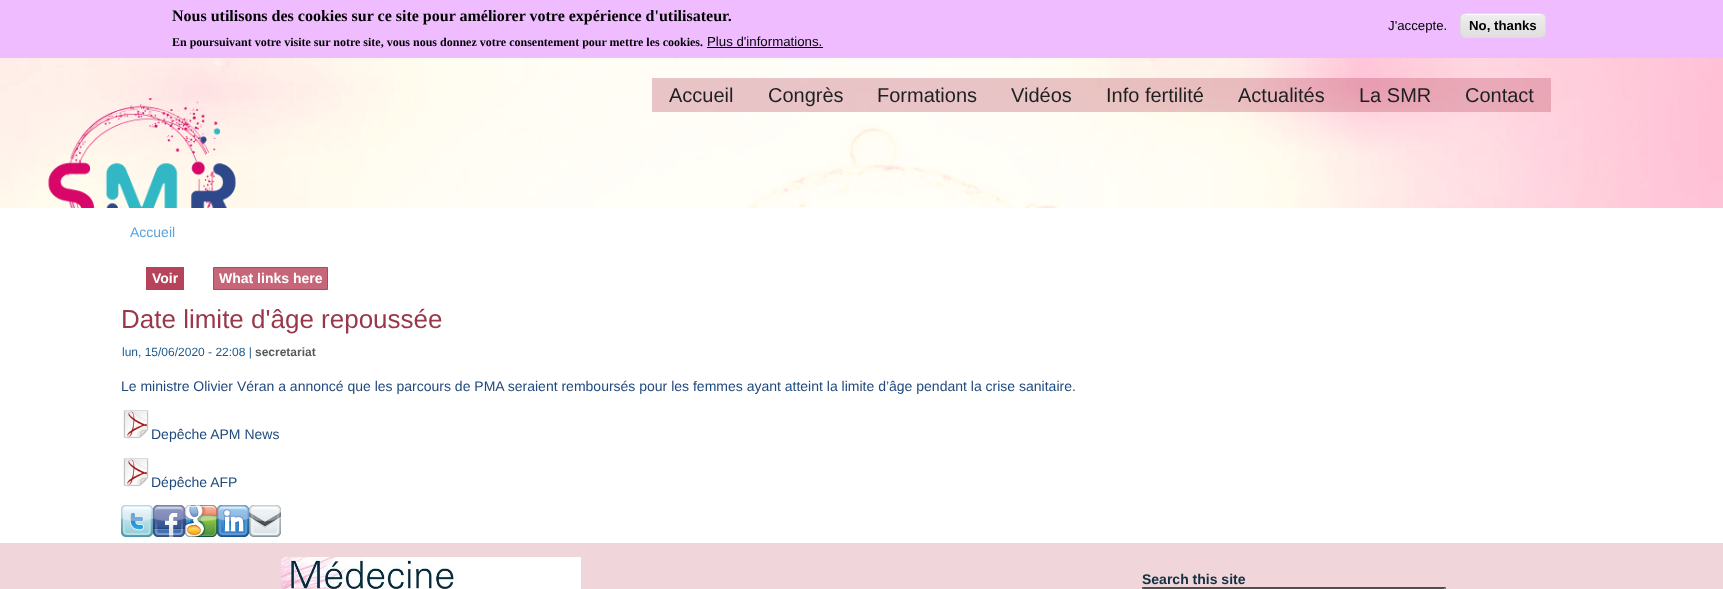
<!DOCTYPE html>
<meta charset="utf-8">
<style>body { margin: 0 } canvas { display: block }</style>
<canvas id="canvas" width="1723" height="589"></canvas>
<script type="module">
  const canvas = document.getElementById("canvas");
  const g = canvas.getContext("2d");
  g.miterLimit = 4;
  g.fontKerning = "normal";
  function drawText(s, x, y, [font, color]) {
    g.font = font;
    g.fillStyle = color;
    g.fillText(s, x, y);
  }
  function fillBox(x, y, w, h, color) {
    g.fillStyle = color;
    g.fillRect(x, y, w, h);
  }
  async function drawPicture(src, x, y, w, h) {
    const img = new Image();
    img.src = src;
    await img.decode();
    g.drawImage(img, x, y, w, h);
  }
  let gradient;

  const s1 = ["bold 16px Liberation Serif", "#000000"];
  const s2 = ["bold 12px Liberation Serif", "#000000"];
  const s3 = ["13.25px Liberation Sans", "#000000"];
  const s4 = ["bold 13.25px Liberation Sans", "#000000"];
  const s5 = ["20px Liberation Sans", "#1D1F20"];
  const s6 = ["14px Liberation Sans", "#5BA2DC"];
  const s7 = ["bold 14px Liberation Sans", "#FFFFFF"];
  const s8 = ["26px Liberation Sans", "#99384A"];
  const s9 = ["12px Liberation Sans", "#1D5A8B"];
  const s10 = ["bold 12px Liberation Sans", "#565B5D"];
  const s11 = ["14px Liberation Sans", "#1F497D"];
  const s12 = ["bold 14px Liberation Sans", "#113040"];

  fillBox(0, 0, 1723, 589, "#FFFFFF");
  fillBox(0, 0, 1723, 58, "#EFBDFF");
  drawText("Nous utilisons des cookies sur ce site pour améliorer votre expérience d'utilisateur.", 172, 21, s1);
  drawText("En poursuivant votre visite sur notre site, vous nous donnez votre consentement pour mettre les cookies.", 172, 46, s2);
  drawText("Plus d'informations.", 707, 46, s3);
  fillBox(707, 47, 116, 1, "#000000");
  drawText("J'accepte.", 1388, 30, s3);
  g.save();
  g.beginPath();
  g.roundRect(1460, 13, 86, 25, 6);
  g.clip();
  gradient = g.createLinearGradient(1503, 14, 1503, 37);
  gradient.addColorStop(0.05, "#EDEDED");
  gradient.addColorStop(1, "#DFDFDF");
  g.fillStyle = gradient;
  g.fillRect(1460, 14, 86, 23);
  g.restore();
  g.fillStyle = "#FFFFFF";
  g.beginPath();
  g.moveTo(1466, 15);
  g.lineTo(1540, 15);
  g.bezierCurveTo(1543, 15, 1545, 17, 1545, 20);
  g.bezierCurveTo(1545, 11, 1533, 14, 1528, 14);
  g.lineTo(1478, 14);
  g.bezierCurveTo(1473, 14, 1461, 11, 1461, 20);
  g.bezierCurveTo(1461, 17, 1463, 15, 1466, 15);
  g.closePath();
  g.fill();
  g.beginPath();
  g.roundRect(1460.5, 13.5, 85, 24, 5.5);
  g.strokeStyle = "#DCDCDC";
  g.stroke();
  drawText("No, thanks", 1469, 30, s4);
  await drawPicture("pic1.png", 0, 58, 1723, 150);
  await drawPicture("pic2.png", 48, 98, 188, 110);
  fillBox(652, 78, 899, 34, "rgba(182, 67, 89, 0.3)");
  drawText("Accueil", 669, 102, s5);
  drawText("Congrès", 768, 102, s5);
  drawText("Formations", 877, 102, s5);
  drawText("Vidéos", 1011, 102, s5);
  drawText("Info fertilité", 1106, 102, s5);
  drawText("Actualités", 1238, 102, s5);
  drawText("La SMR", 1359, 102, s5);
  drawText("Contact", 1465, 102, s5);
  drawText("Accueil", 130, 237, s6);
  fillBox(146, 267, 38, 23, "#B64359");
  drawText("Voir", 152, 283, s7);
  g.fillStyle = "#C76678";
  g.beginPath();
  g.rect(213.5, 267.5, 114, 22);
  g.fill();
  g.strokeStyle = "#B64359";
  g.stroke();
  drawText("What links here", 219, 283, s7);
  drawText("Date limite d'âge repoussée", 121, 328, s8);
  drawText("lun, 15/06/2020 - 22:08 |", 122, 356, s9);
  drawText("secretariat", 255, 356, s10);
  drawText("Le ministre Olivier Véran a annoncé que les parcours de PMA seraient remboursés pour les femmes ayant atteint la limite d’âge pendant la crise sanitaire.", 121, 391, s11);
  await drawPicture("pic3.png", 123, 410, 26, 29);
  drawText("Depêche APM News", 151, 439, s11);
  await drawPicture("pic3.png", 123, 458, 26, 29);
  drawText("Dépêche AFP", 151, 487, s11);
  await drawPicture("pic4.png", 121, 505, 32, 32);
  await drawPicture("pic5.png", 153, 505, 32, 32);
  await drawPicture("pic6.png", 185, 505, 32, 32);
  await drawPicture("pic7.png", 217, 505, 32, 32);
  await drawPicture("pic8.png", 249, 505, 32, 32);
  fillBox(0, 543, 1723, 46, "#F0D5DA");
  await drawPicture("pic9.png", 281, 557, 300, 32);
  drawText("Search this site", 1142, 584, s12);
  g.fillStyle = "#4F4F4F";
  g.beginPath();
  g.moveTo(1142, 587);
  g.lineTo(1446, 587);
  g.lineTo(1444, 589);
  g.lineTo(1144, 589);
  g.closePath();
  g.fill();
  g.fillStyle = "#767676";
  g.beginPath();
  g.moveTo(1446, 587);
  g.lineTo(1446, 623);
  g.lineTo(1444, 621);
  g.lineTo(1444, 589);
  g.closePath();
  g.fill();
  g.fillStyle = "#4F4F4F";
  g.beginPath();
  g.moveTo(1142, 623);
  g.lineTo(1142, 587);
  g.lineTo(1144, 589);
  g.lineTo(1144, 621);
  g.closePath();
  g.fill();
</script>
